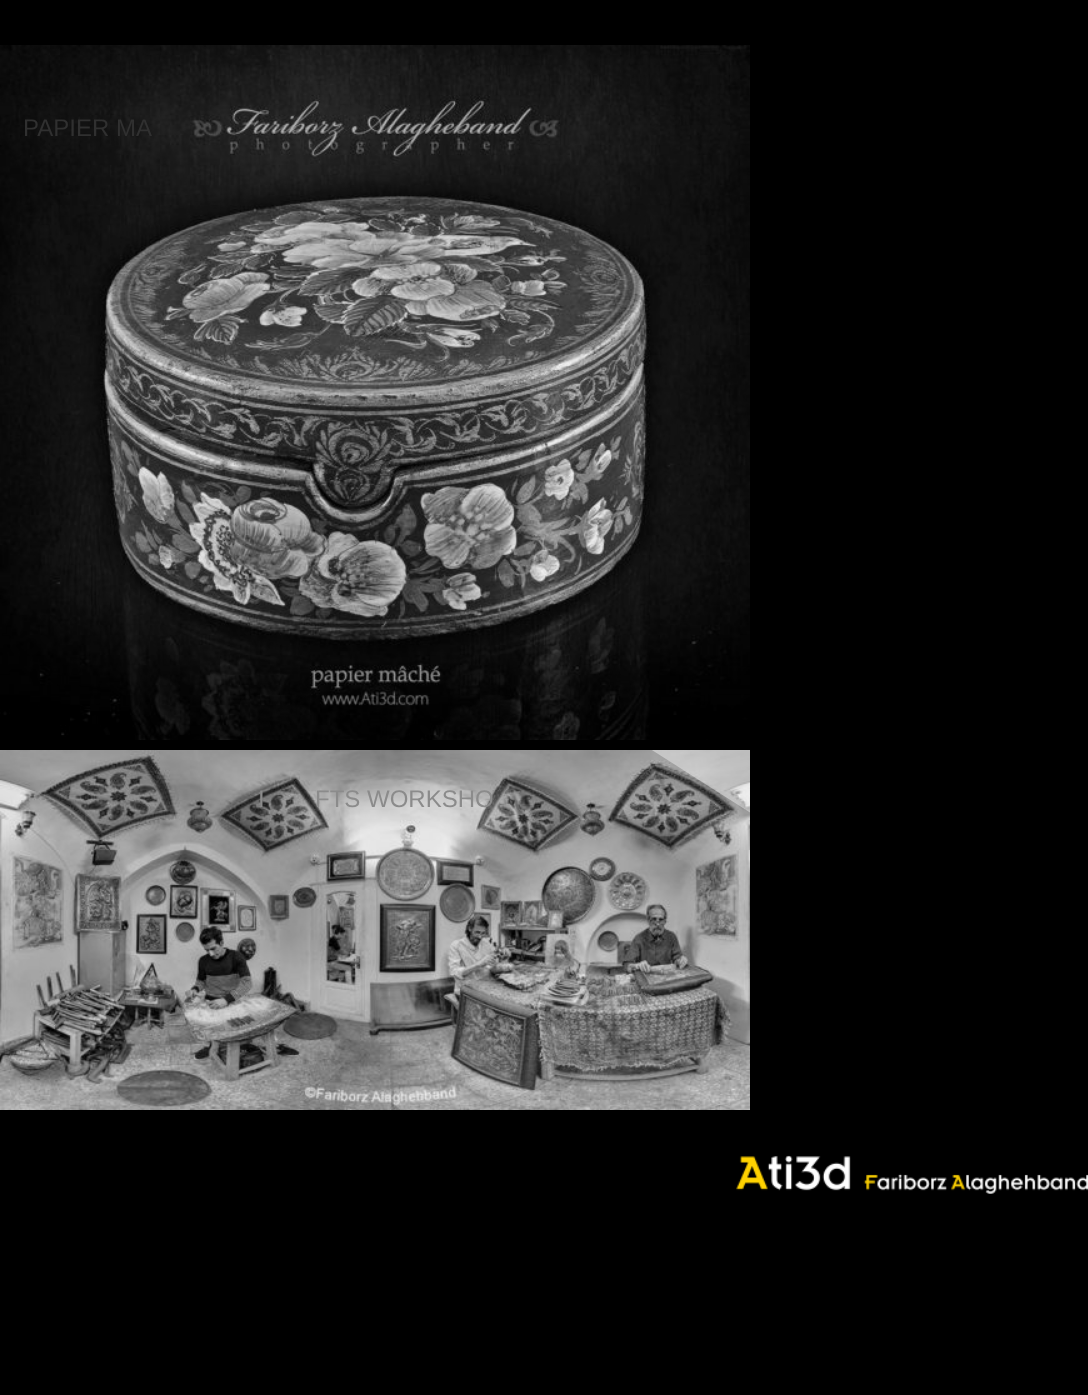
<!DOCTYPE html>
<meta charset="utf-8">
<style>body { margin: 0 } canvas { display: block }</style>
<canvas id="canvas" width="1088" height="1395"></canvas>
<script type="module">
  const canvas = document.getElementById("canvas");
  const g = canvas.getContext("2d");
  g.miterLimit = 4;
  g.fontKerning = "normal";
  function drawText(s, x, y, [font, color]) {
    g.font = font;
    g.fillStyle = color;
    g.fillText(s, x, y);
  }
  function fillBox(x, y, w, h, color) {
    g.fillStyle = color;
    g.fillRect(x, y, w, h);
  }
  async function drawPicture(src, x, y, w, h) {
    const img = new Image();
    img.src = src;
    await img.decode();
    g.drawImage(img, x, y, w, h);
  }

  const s1 = ["24px Liberation Sans", "#303030"];
  const s2 = ["24px Liberation Sans", "#8B8B8B"];

  fillBox(0, 0, 1088, 1395, "#000000");
  await drawPicture("pic1.png", 0, 45, 750, 695);
  drawText("PAPIER MA", 23, 136, s1);
  await drawPicture("pic2.png", 0, 750, 750, 360);
  drawText("I", 258, 807, s2);
  drawText("FTS WORKSHO", 315, 807, s2);
  g.save();
  g.beginPath();
  g.rect(0, 750, 750, 360);
  g.clip();
  g.fillStyle = "rgba(255, 255, 255, 0.4)";
  g.beginPath();
  g.moveTo(632, 24);
  g.lineTo(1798, 767);
  g.lineTo(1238, 1123);
  g.lineTo(72, 381);
  g.closePath();
  g.fill();
  g.restore();
  await drawPicture("pic3.png", 736, 1155, 352, 39);
</script>
